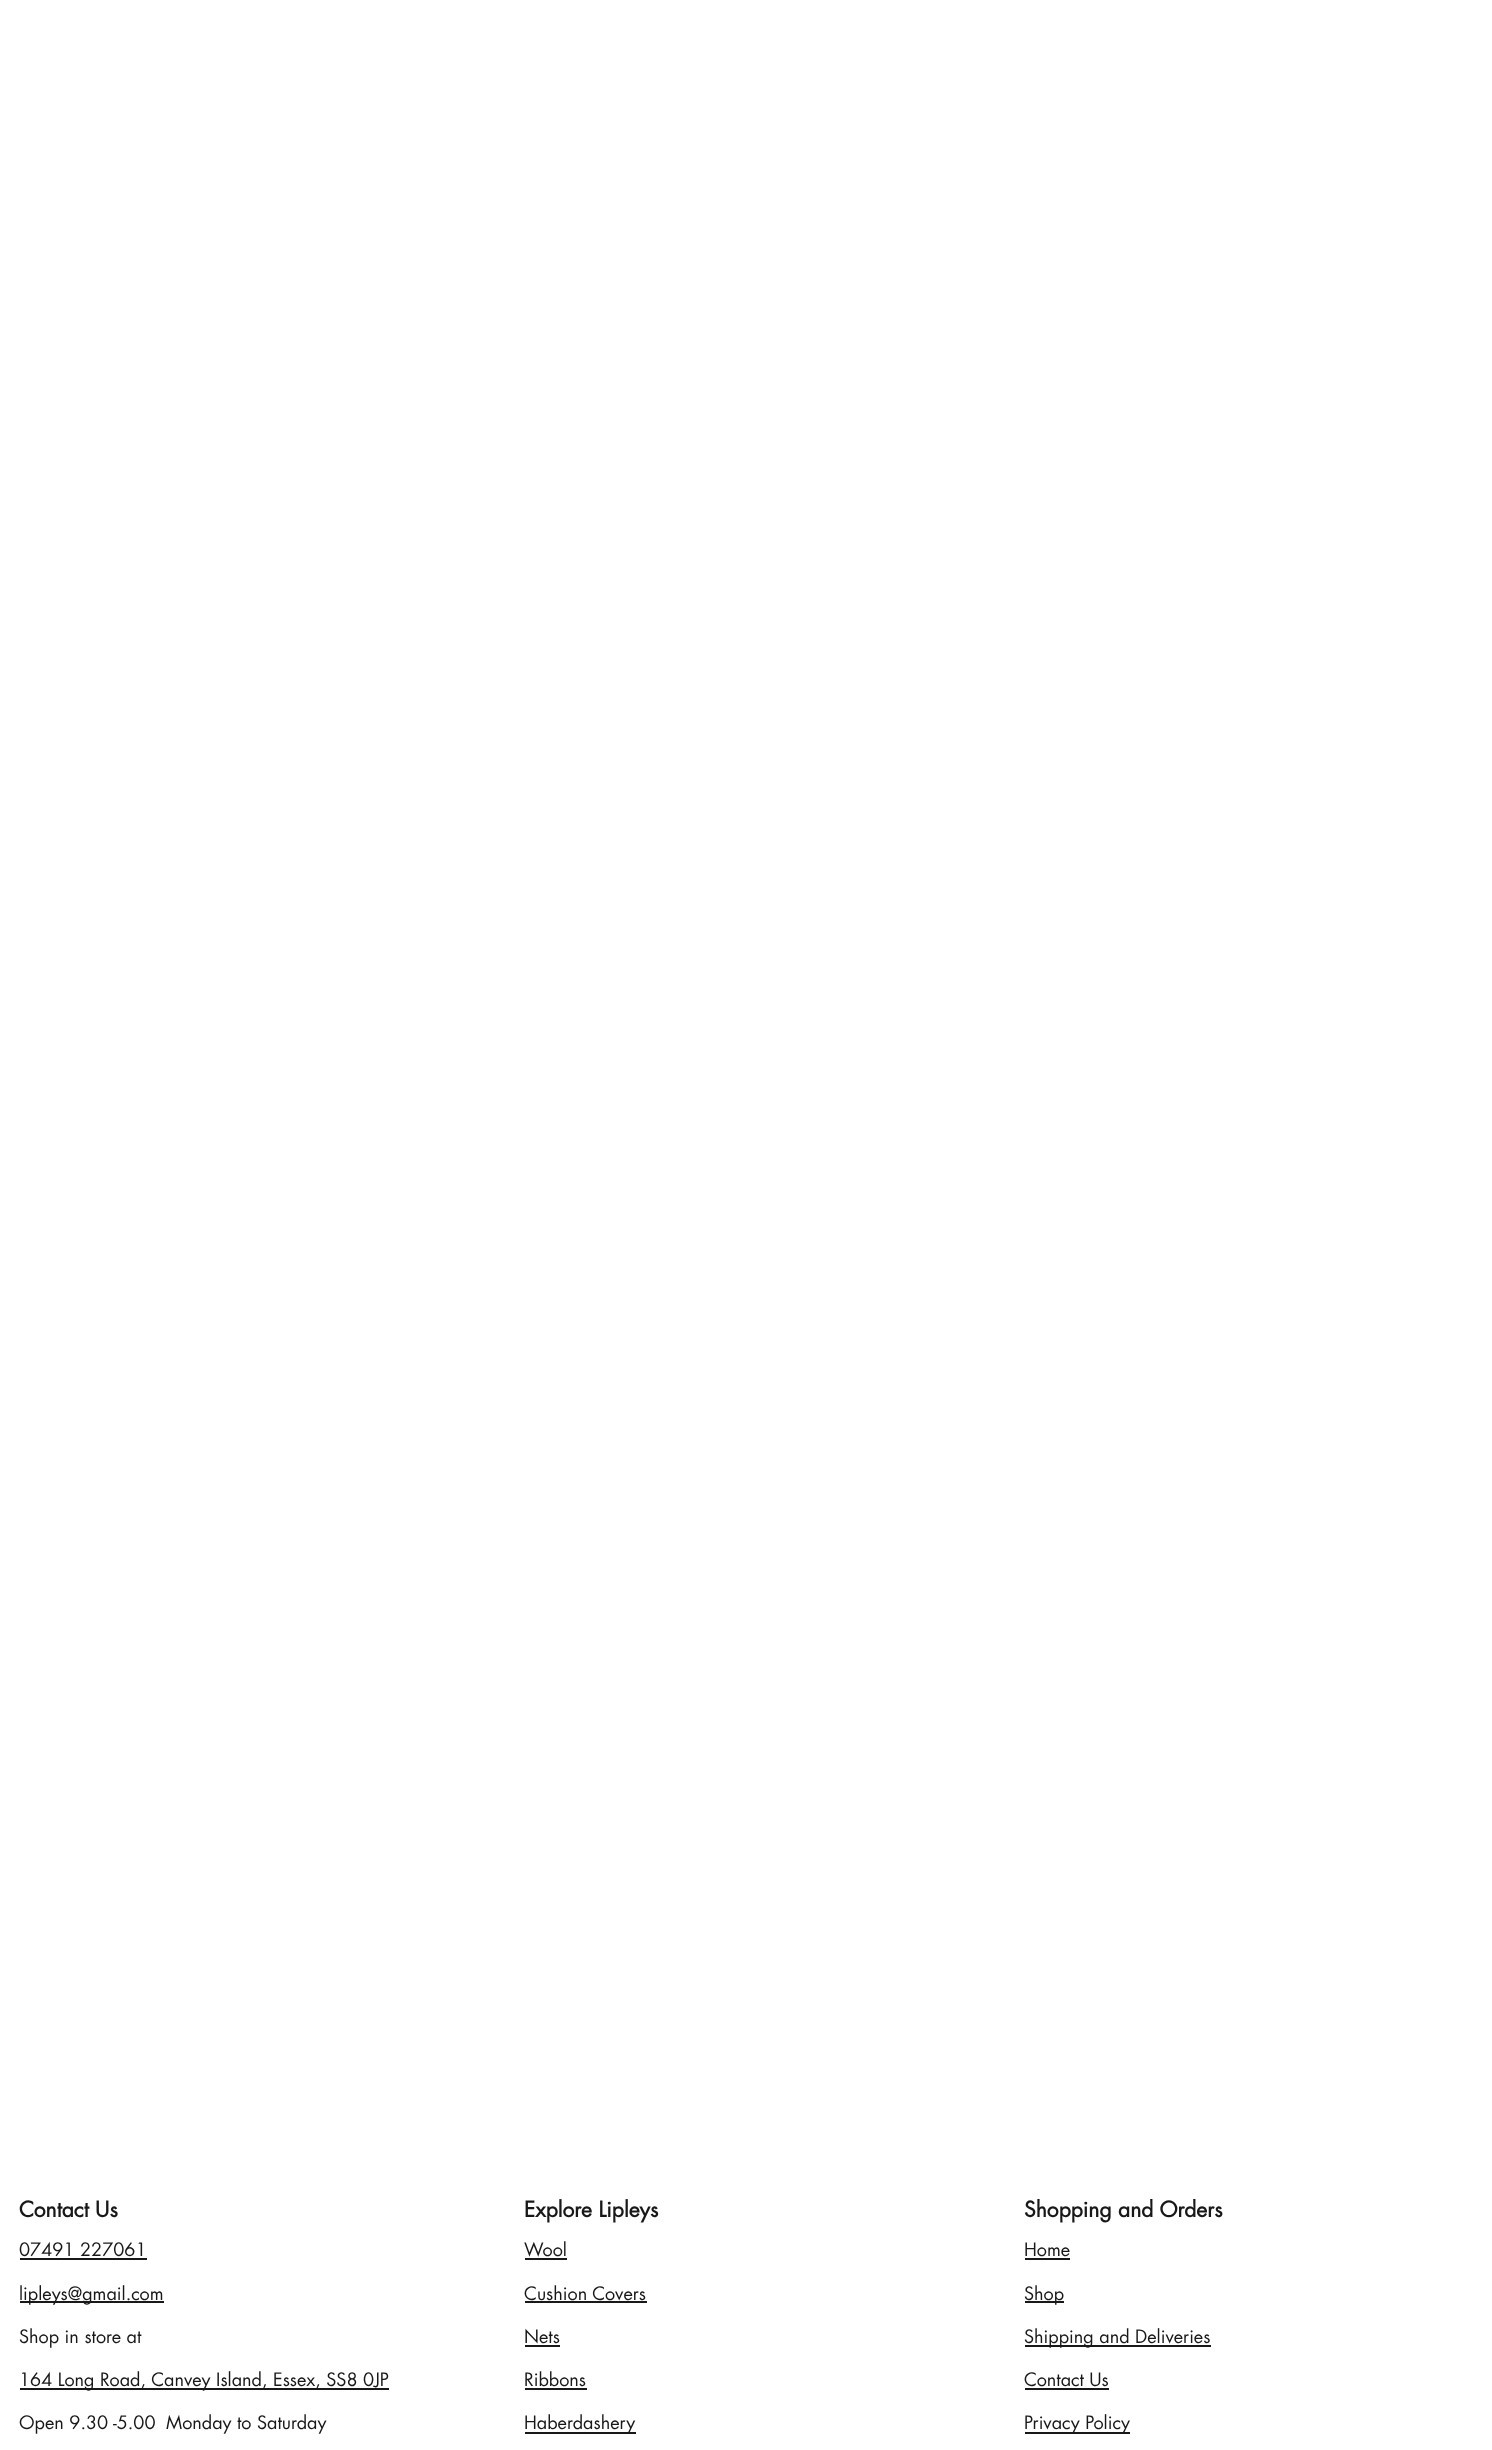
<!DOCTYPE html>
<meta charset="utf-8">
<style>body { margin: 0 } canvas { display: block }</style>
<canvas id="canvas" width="1492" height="2450"></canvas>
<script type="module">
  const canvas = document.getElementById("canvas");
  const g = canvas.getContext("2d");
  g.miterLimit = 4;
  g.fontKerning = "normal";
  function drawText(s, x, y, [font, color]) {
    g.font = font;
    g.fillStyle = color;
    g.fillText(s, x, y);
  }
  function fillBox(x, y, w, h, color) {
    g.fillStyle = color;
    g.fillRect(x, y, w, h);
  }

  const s1 = ["bold 21px futura", "#181818"];
  const s2 = ["18px futura", "#181818"];

  fillBox(0, 0, 1492, 2450, "#FFFFFF");
  drawText("Contact Us", 19, 2217, s1);
  drawText("Explore Lipleys", 524, 2217, s1);
  drawText("Shopping and Orders", 1024, 2217, s1);
  drawText("07491 227061", 19, 2256, s2);
  fillBox(20, 2258, 127, 2, "#181818");
  fillBox(20, 2301, 144, 2, "#181818");
  drawText("lipleys@gmail.com", 19, 2300, s2);
  drawText("Shop in store at", 19, 2343, s2);
  fillBox(20, 2388, 369, 2, "#181818");
  drawText("164 Long Road, Canvey Island, Essex, SS8 0JP", 19, 2386, s2);
  drawText("Open 9.30 -5.00", 19, 2429, s2);
  drawText("Monday to Saturday", 166, 2429, s2);
  drawText("Wool", 524, 2256, s2);
  fillBox(525, 2258, 42, 2, "#181818");
  drawText("Cushion Covers", 524, 2300, s2);
  fillBox(525, 2301, 122, 2, "#181818");
  drawText("Nets", 524, 2343, s2);
  fillBox(525, 2345, 35, 2, "#181818");
  drawText("Ribbons", 524, 2386, s2);
  fillBox(525, 2388, 62, 2, "#181818");
  fillBox(525, 2432, 111, 2, "#181818");
  drawText("Haberdashery", 524, 2429, s2);
  drawText("Home", 1024, 2256, s2);
  fillBox(1025, 2258, 45, 2, "#181818");
  fillBox(1025, 2301, 39, 2, "#181818");
  drawText("Shop", 1024, 2300, s2);
  fillBox(1025, 2345, 186, 2, "#181818");
  drawText("Shipping and Deliveries", 1024, 2343, s2);
  drawText("Contact Us", 1024, 2386, s2);
  fillBox(1025, 2388, 84, 2, "#181818");
  fillBox(1025, 2432, 105, 2, "#181818");
  drawText("Privacy Policy", 1024, 2429, s2);
</script>
